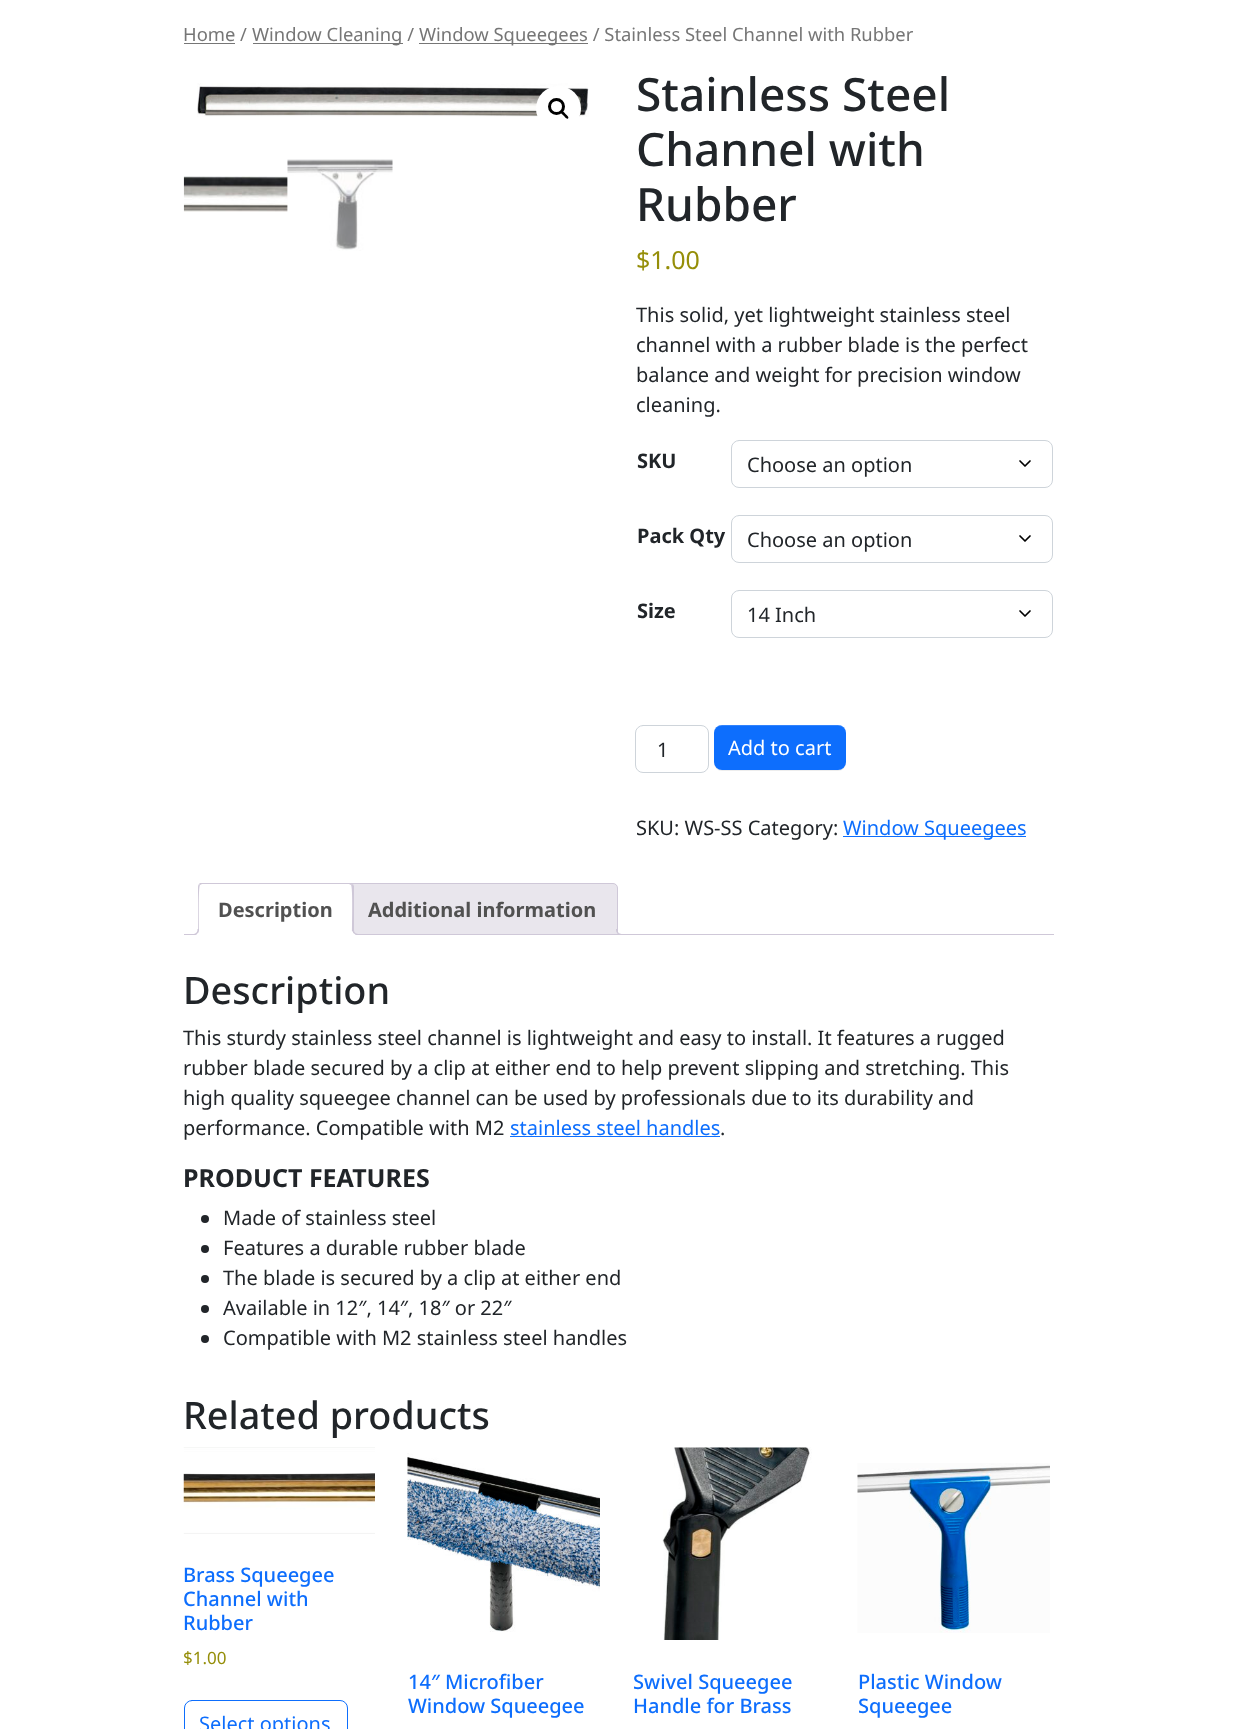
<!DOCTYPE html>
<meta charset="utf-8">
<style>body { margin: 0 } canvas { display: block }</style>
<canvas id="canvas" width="1236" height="1729"></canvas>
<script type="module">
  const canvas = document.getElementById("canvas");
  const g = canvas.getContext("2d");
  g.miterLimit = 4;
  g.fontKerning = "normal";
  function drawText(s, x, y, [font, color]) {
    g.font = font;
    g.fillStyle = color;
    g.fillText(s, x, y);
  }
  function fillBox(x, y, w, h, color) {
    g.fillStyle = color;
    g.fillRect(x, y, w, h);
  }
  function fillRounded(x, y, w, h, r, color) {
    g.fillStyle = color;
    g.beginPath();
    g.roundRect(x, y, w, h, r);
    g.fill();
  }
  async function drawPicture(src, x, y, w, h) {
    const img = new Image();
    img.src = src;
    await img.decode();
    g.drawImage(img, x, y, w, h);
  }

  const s1 = ["18.4px Noto Sans", "#767676"];
  const s2 = ["500 46px Noto Sans", "#212529"];
  const s3 = ["25px Noto Sans", "#958E09"];
  const s4 = ["20px Noto Sans", "#212529"];
  const s5 = ["bold 20px Noto Sans", "#212529"];
  const s6 = ["20px Noto Sans", "#FFFFFF"];
  const s7 = ["20px Noto Sans", "#0D6EFD"];
  const s8 = ["bold 20px Noto Sans", "#515151"];
  const s9 = ["500 37.75px Noto Sans", "#212529"];
  const s10 = ["bold 25px Noto Sans", "#212529"];
  const s11 = ["500 20px Noto Sans", "#0D6EFD"];
  const s12 = ["17px Noto Sans", "#958E09"];

  fillBox(0, 0, 1236, 1729, "#FFFFFF");
  drawText("Home /", 183, 41, s1);
  fillBox(184, 43, 51, 1, "#767676");
  fillBox(253, 43, 150, 1, "#767676");
  drawText("Window Cleaning /", 252, 41, s1);
  fillBox(419, 43, 169, 1, "#767676");
  drawText("Window Squeegees / Stainless Steel Channel with Rubber", 419, 41, s1);
  await drawPicture("pic1.png", 197, 83, 392, 34);
  g.fillStyle = "#FFFFFF";
  g.beginPath();
  g.arc(558.5, 108.5, 22.5, 0, Math.PI * 2);
  g.fill();
  g.beginPath();
  g.arc(556.5, 106.5, 7, 0, Math.PI * 2);
  g.strokeStyle = "#000000";
  g.lineWidth = 3;
  g.stroke();
  g.fillStyle = "#000000";
  g.beginPath();
  g.moveTo(561, 111);
  g.bezierCurveTo(562.5, 110, 564.5, 113, 565.5, 114);
  g.bezierCurveTo(566, 114.5, 569.5, 117, 568, 118.5);
  g.bezierCurveTo(566.5, 119.5, 564.5, 116.5, 563.5, 115.5);
  g.bezierCurveTo(563, 115, 559.5, 112.5, 561, 111);
  g.closePath();
  g.fill();
  await drawPicture("pic2.png", 183, 176, 105, 36);
  await drawPicture("pic3.png", 287, 159, 106, 92);
  drawText("Stainless Steel", 636, 111, s2);
  drawText("Channel with", 636, 166, s2);
  drawText("Rubber", 636, 221, s2);
  drawText("$1.00", 636, 269, s3);
  drawText("This solid, yet lightweight stainless steel", 636, 322, s4);
  drawText("channel with a rubber blade is the perfect", 636, 352, s4);
  drawText("balance and weight for precision window", 636, 382, s4);
  drawText("cleaning.", 636, 412, s4);
  drawText("SKU", 637, 468, s5);
  g.beginPath();
  g.moveTo(1020, 461);
  g.lineTo(1025, 466);
  g.lineTo(1030, 461);
  g.lineWidth = 1.7;
  g.lineCap = "round";
  g.lineJoin = "round";
  g.stroke();
  g.beginPath();
  g.roundRect(731.5, 440.5, 321, 47, 7.5);
  g.strokeStyle = "#CED4DA";
  g.lineWidth = 1;
  g.lineJoin = "miter";
  g.stroke();
  drawText("Choose an option", 747, 472, s4);
  drawText("Pack Qty", 637, 543, s5);
  g.beginPath();
  g.moveTo(1020, 536);
  g.lineTo(1025, 541);
  g.lineTo(1030, 536);
  g.strokeStyle = "#000000";
  g.lineWidth = 1.7;
  g.lineJoin = "round";
  g.stroke();
  g.beginPath();
  g.roundRect(731.5, 515.5, 321, 47, 7.5);
  g.strokeStyle = "#CED4DA";
  g.lineWidth = 1;
  g.lineJoin = "miter";
  g.stroke();
  drawText("Choose an option", 747, 547, s4);
  drawText("Size", 637, 618, s5);
  g.beginPath();
  g.moveTo(1020, 611);
  g.lineTo(1025, 616);
  g.lineTo(1030, 611);
  g.strokeStyle = "#000000";
  g.lineWidth = 1.7;
  g.lineJoin = "round";
  g.stroke();
  g.beginPath();
  g.roundRect(731.5, 590.5, 321, 47, 7.5);
  g.strokeStyle = "#CED4DA";
  g.lineWidth = 1;
  g.lineJoin = "miter";
  g.stroke();
  drawText("14 Inch", 747, 622, s4);
  g.beginPath();
  g.roundRect(635.5, 725.5, 73, 47, 7.5);
  g.stroke();
  drawText("1", 657, 757, s4);
  g.fillStyle = "rgba(0, 0, 0, 0.07)";
  g.filter = "blur(0.5px)";
  g.beginPath();
  g.roundRect(714, 726, 132, 45, 8);
  g.fill();
  g.filter = "none";
  fillRounded(714, 725, 132, 45, 8, "#0D6EFD");
  g.fillStyle = "rgba(255, 255, 255, 0.15)";
  g.beginPath();
  g.moveTo(721, 726);
  g.lineTo(839, 726);
  g.bezierCurveTo(843, 726, 846, 730, 846, 734);
  g.bezierCurveTo(846, 720, 826, 725, 819, 725);
  g.lineTo(741, 725);
  g.bezierCurveTo(734, 725, 714, 720, 714, 734);
  g.bezierCurveTo(714, 730, 717, 726, 721, 726);
  g.closePath();
  g.fill();
  drawText("Add to cart", 728, 755, s6);
  drawText("SKU: WS-SS Category:", 636, 835, s4);
  fillBox(843, 836, 183, 1, "#0D6EFD");
  drawText("Window Squeegees", 843, 835, s7);
  g.fillStyle = "#E9E6ED";
  g.beginPath();
  g.roundRect(346.5, 883.5, 271, 51, [4.5, 4.5, 0, 0]);
  g.fill();
  g.strokeStyle = "#CFC8D8";
  g.stroke();
  g.save();
  g.beginPath();
  g.rect(184, 883, 870, 52);
  g.clip();
  g.beginPath();
  g.moveTo(614, 931);
  g.bezierCurveTo(614, 935.5, 615, 938, 620, 938);
  g.lineTo(620, 935);
  g.bezierCurveTo(618, 934.5, 616.5, 933, 616.5, 931);
  g.closePath();
  g.fill();
  g.restore();
  g.fillStyle = "#CFC8D8";
  g.beginPath();
  g.moveTo(616, 929);
  g.lineTo(622.5, 929);
  g.lineTo(622.5, 935);
  g.bezierCurveTo(619.5, 935, 616, 933.5, 616, 930);
  g.closePath();
  g.moveTo(617.5, 929);
  g.lineTo(622.5, 929);
  g.lineTo(622.5, 934);
  g.bezierCurveTo(620, 934, 617.5, 933, 617.5, 930);
  g.closePath();
  g.fill("evenodd");
  fillBox(184, 934, 870, 1, "#CFC8D8");
  g.fillStyle = "#FFFFFF";
  g.beginPath();
  g.roundRect(198, 883, 156, 52, [5, 5, 0, 0]);
  g.fill();
  g.save();
  g.beginPath();
  g.rect(184, 883, 870, 52);
  g.clip();
  g.fillStyle = "#CFC8D8";
  g.beginPath();
  g.moveTo(202, 884);
  g.lineTo(200, 885);
  g.lineTo(199, 884);
  g.lineTo(201, 882);
  g.lineTo(351, 882);
  g.lineTo(353, 884);
  g.lineTo(351, 885);
  g.lineTo(349, 884);
  g.closePath();
  g.fill();
  g.restore();
  g.fillStyle = "#CFC8D8";
  g.beginPath();
  g.moveTo(354, 886);
  g.lineTo(354, 935);
  g.lineTo(352, 933);
  g.bezierCurveTo(352, 927, 353, 887, 351, 885);
  g.lineTo(353, 884);
  g.closePath();
  g.fill();
  g.fillStyle = "#FFFFFF";
  g.beginPath();
  g.moveTo(354, 935);
  g.lineTo(352, 933);
  g.lineTo(352, 934);
  g.lineTo(199, 934);
  g.lineTo(198, 935);
  g.closePath();
  g.fill();
  g.fillStyle = "#CFC8D8";
  g.beginPath();
  g.moveTo(198, 934);
  g.lineTo(198, 888);
  g.bezierCurveTo(198, 887, 198, 885, 199, 884);
  g.lineTo(200, 885);
  g.bezierCurveTo(198, 887, 199, 928, 199, 934);
  g.closePath();
  g.fill();
  drawText("Description", 218, 917, s8);
  g.save();
  g.beginPath();
  g.rect(184, 883, 870, 52);
  g.clip();
  g.fillStyle = "#FFFFFF";
  g.beginPath();
  g.moveTo(195, 935);
  g.lineTo(195, 938);
  g.bezierCurveTo(200, 938, 201, 935.5, 201, 931);
  g.lineTo(198.5, 931);
  g.bezierCurveTo(198.5, 933, 197, 934.5, 195, 935);
  g.closePath();
  g.fill();
  g.restore();
  g.fillStyle = "#CFC8D8";
  g.beginPath();
  g.moveTo(192.5, 929);
  g.lineTo(199, 929);
  g.bezierCurveTo(199, 933, 197, 935, 192.5, 935);
  g.closePath();
  g.moveTo(192.5, 929);
  g.lineTo(197.5, 929);
  g.bezierCurveTo(197.5, 932.5, 196, 934, 192.5, 934);
  g.closePath();
  g.fill("evenodd");
  g.save();
  g.beginPath();
  g.rect(184, 883, 870, 52);
  g.clip();
  g.fillStyle = "#FFFFFF";
  g.beginPath();
  g.moveTo(350, 931);
  g.bezierCurveTo(350, 935.5, 351, 938, 356, 938);
  g.lineTo(356, 935);
  g.bezierCurveTo(354.5, 934, 353, 933, 352.5, 931);
  g.closePath();
  g.fill();
  g.restore();
  g.beginPath();
  g.moveTo(352.5, 929);
  g.lineTo(359, 929);
  g.lineTo(359, 935);
  g.bezierCurveTo(355.5, 935, 352.5, 933.5, 352.5, 930);
  g.closePath();
  g.moveTo(354, 929);
  g.lineTo(359, 929);
  g.lineTo(359, 934);
  g.bezierCurveTo(356.5, 934, 354, 933, 354, 930);
  g.closePath();
  g.fill("evenodd");
  drawText("Additional information", 368, 917, s8);
  drawText("Description", 183, 1004, s9);
  drawText("This sturdy stainless steel channel is lightweight and easy to install. It features a rugged", 183, 1045, s4);
  drawText("rubber blade secured by a clip at either end to help prevent slipping and stretching. This", 183, 1075, s4);
  drawText("high quality squeegee channel can be used by professionals due to its durability and", 183, 1105, s4);
  drawText("performance. Compatible with M2", 183, 1135, s4);
  drawText("stainless steel handles", 510, 1135, s7);
  fillBox(510, 1136, 210, 1, "#0D6EFD");
  drawText(".", 720, 1135, s4);
  drawText("PRODUCT FEATURES", 183, 1187, s10);
  g.beginPath();
  g.arc(205, 1219, 4, 0, Math.PI * 2);
  g.fill();
  drawText("Made of stainless steel", 223, 1225, s4);
  g.beginPath();
  g.arc(205, 1249, 4, 0, Math.PI * 2);
  g.fill();
  drawText("Features a durable rubber blade", 223, 1255, s4);
  g.beginPath();
  g.arc(205, 1279, 4, 0, Math.PI * 2);
  g.fill();
  drawText("The blade is secured by a clip at either end", 223, 1285, s4);
  g.beginPath();
  g.arc(205, 1309, 4, 0, Math.PI * 2);
  g.fill();
  drawText("Available in 12″, 14″, 18″ or 22″", 223, 1315, s4);
  g.beginPath();
  g.arc(205, 1339, 4, 0, Math.PI * 2);
  g.fill();
  drawText("Compatible with M2 stainless steel handles", 223, 1345, s4);
  drawText("Related products", 183, 1429, s9);
  await drawPicture("pic4.png", 183, 1447, 192, 87);
  drawText("Brass Squeegee", 183, 1582, s11);
  drawText("Channel with", 183, 1606, s11);
  drawText("Rubber", 183, 1630, s11);
  drawText("$1.00", 183, 1664, s12);
  g.beginPath();
  g.roundRect(184.5, 1700.5, 163, 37, 7.5);
  g.strokeStyle = "#0D6EFD";
  g.stroke();
  drawText("Select options", 199, 1731, s7);
  await drawPicture("pic5.png", 407, 1453, 193, 179);
  drawText("14″ Microfiber", 408, 1689, s11);
  drawText("Window Squeegee", 408, 1713, s11);
  await drawPicture("pic6.png", 662, 1447, 150, 193);
  drawText("Swivel Squeegee", 633, 1689, s11);
  drawText("Handle for Brass", 633, 1713, s11);
  await drawPicture("pic7.png", 857, 1463, 193, 170);
  drawText("Plastic Window", 858, 1689, s11);
  drawText("Squeegee", 858, 1713, s11);
</script>
